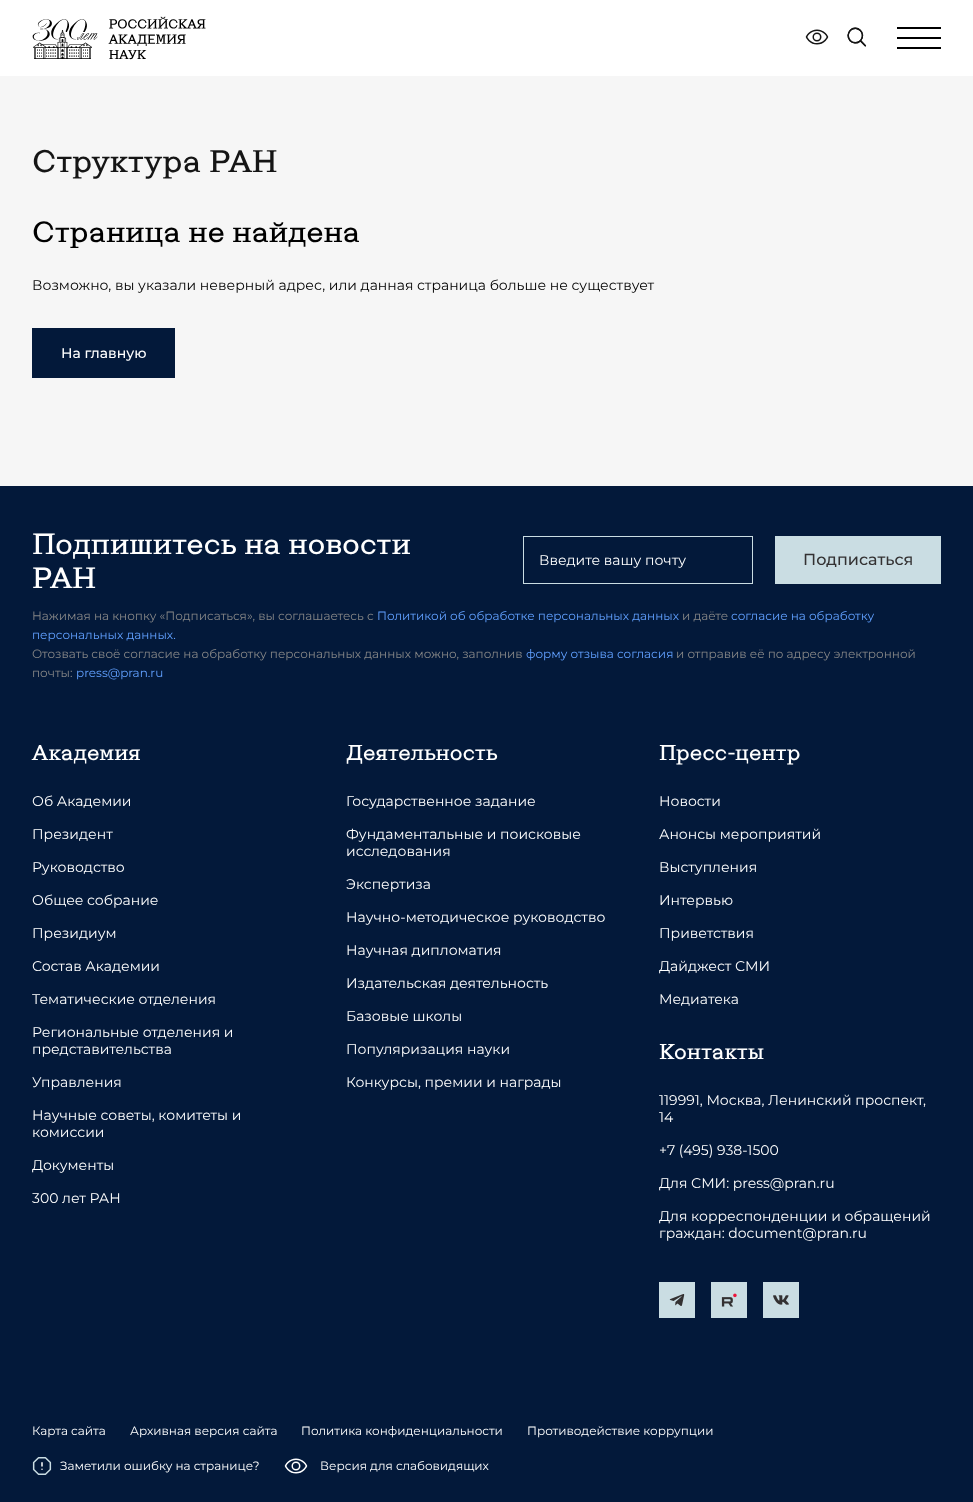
<!DOCTYPE html>
<meta charset="utf-8">
<style>body { margin: 0 } canvas { display: block }</style>
<canvas id="canvas" width="973" height="1502"></canvas>
<script type="module">
  const canvas = document.getElementById("canvas");
  const g = canvas.getContext("2d");
  g.miterLimit = 4;
  g.fontKerning = "normal";
  function drawText(s, x, y, [font, color]) {
    g.font = font;
    g.fillStyle = color;
    g.fillText(s, x, y);
  }
  function fillBox(x, y, w, h, color) {
    g.fillStyle = color;
    g.fillRect(x, y, w, h);
  }
  async function drawPicture(src, x, y, w, h) {
    const img = new Image();
    img.src = src;
    await img.decode();
    g.drawImage(img, x, y, w, h);
  }

  const s1 = ["500 32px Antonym", "#151515"];
  const s2 = ["500 30px Antonym", "#000000"];
  const s3 = ["14px Montserrat", "#000000"];
  const s4 = ["500 14px Montserrat", "#FFFFFF"];
  const s5 = ["500 30px Antonym", "#FFFFFF"];
  const s6 = ["14px Montserrat", "#FFFFFF"];
  const s7 = ["500 16px Montserrat", "#333132"];
  const s8 = ["12px Montserrat", "#878787"];
  const s9 = ["12px Montserrat", "#61A0FF"];
  const s10 = ["500 22px Antonym", "#FFFFFF"];
  const s11 = ["12px Montserrat", "#FFFFFF"];

  fillBox(0, 0, 973, 1502, "#F6F6F6");
  fillBox(0, 0, 973, 76, "#FFFFFF");
  await drawPicture("pic1.png", 32, 16, 174, 44);
  await drawPicture("pic2.png", 805, 29, 24, 16);
  await drawPicture("pic3.png", 847, 27, 20, 20);
  fillBox(897, 27, 44, 2, "#000000");
  fillBox(897, 37, 44, 2, "#000000");
  fillBox(897, 47, 44, 2, "#000000");
  drawText("Структура РАН", 32, 172, s1);
  drawText("Страница не найдена", 32, 242, s2);
  drawText("Возможно, вы указали неверный адрес, или данная страница больше не существует", 32, 290, s3);
  fillBox(32, 328, 143, 50, "#03193A");
  drawText("На главную", 61, 358, s4);
  fillBox(0, 486, 973, 1016, "#03193A");
  drawText("Подпишитесь на новости", 32, 554, s5);
  drawText("РАН", 32, 588, s5);
  g.strokeStyle = "#CADDE3";
  g.strokeRect(523.5, 536.5, 229, 47);
  drawText("Введите вашу почту", 539, 565, s6);
  fillBox(775, 536, 166, 48, "#CADDE3");
  drawText("Подписаться", 803, 565, s7);
  drawText("Нажимая на кнопку «Подписаться», вы соглашаетесь с", 32, 620, s8);
  drawText("Политикой об обработке персональных данных", 377, 620, s9);
  drawText("и даёте", 682, 620, s8);
  drawText("согласие на обработку", 731, 620, s9);
  drawText("персональных данных.", 32, 639, s9);
  drawText("Отозвать своё согласие на обработку персональных данных можно, заполнив", 32, 658, s8);
  drawText("форму отзыва согласия", 526, 658, s9);
  drawText("и отправив её по адресу электронной", 676, 658, s8);
  drawText("почты:", 32, 677, s8);
  drawText("press@pran.ru", 76, 677, s9);
  drawText("Академия", 32, 760, s10);
  drawText("Об Академии", 32, 806, s6);
  drawText("Президент", 32, 839, s6);
  drawText("Руководство", 32, 872, s6);
  drawText("Общее собрание", 32, 905, s6);
  drawText("Президиум", 32, 938, s6);
  drawText("Состав Академии", 32, 971, s6);
  drawText("Тематические отделения", 32, 1004, s6);
  drawText("Региональные отделения и", 32, 1037, s6);
  drawText("представительства", 32, 1054, s6);
  drawText("Управления", 32, 1087, s6);
  drawText("Научные советы, комитеты и", 32, 1120, s6);
  drawText("комиссии", 32, 1137, s6);
  drawText("Документы", 32, 1170, s6);
  drawText("300 лет РАН", 32, 1203, s6);
  drawText("Деятельность", 346, 760, s10);
  drawText("Государственное задание", 346, 806, s6);
  drawText("Фундаментальные и поисковые", 346, 839, s6);
  drawText("исследования", 346, 856, s6);
  drawText("Экспертиза", 346, 889, s6);
  drawText("Научно-методическое руководство", 346, 922, s6);
  drawText("Научная дипломатия", 346, 955, s6);
  drawText("Издательская деятельность", 346, 988, s6);
  drawText("Базовые школы", 346, 1021, s6);
  drawText("Популяризация науки", 346, 1054, s6);
  drawText("Конкурсы, премии и награды", 346, 1087, s6);
  drawText("Пресс-центр", 659, 760, s10);
  drawText("Новости", 659, 806, s6);
  drawText("Анонсы мероприятий", 659, 839, s6);
  drawText("Выступления", 659, 872, s6);
  drawText("Интервью", 659, 905, s6);
  drawText("Приветствия", 659, 938, s6);
  drawText("Дайджест СМИ", 659, 971, s6);
  drawText("Медиатека", 659, 1004, s6);
  drawText("Контакты", 659, 1059, s10);
  drawText("119991, Москва, Ленинский проспект,", 659, 1105, s6);
  drawText("14", 659, 1122, s6);
  drawText("+7 (495) 938-1500", 659, 1155, s6);
  drawText("Для СМИ: press@pran.ru", 659, 1188, s6);
  drawText("Для корреспонденции и обращений", 659, 1221, s6);
  drawText("граждан: document@pran.ru", 659, 1238, s6);
  fillBox(659, 1282, 36, 36, "#CADDE3");
  await drawPicture("pic4.png", 669, 1294, 16, 12);
  fillBox(711, 1282, 36, 36, "#CADDE3");
  await drawPicture("pic5.png", 721, 1293, 16, 14);
  fillBox(763, 1282, 36, 36, "#CADDE3");
  await drawPicture("pic6.png", 773, 1295, 16, 10);
  drawText("Карта сайта", 32, 1435, s11);
  drawText("Архивная версия сайта", 130, 1435, s11);
  drawText("Политика конфиденциальности", 301, 1435, s11);
  drawText("Противодействие коррупции", 527, 1435, s11);
  await drawPicture("pic7.png", 32, 1457, 20, 18);
  drawText("Заметили ошибку на странице?", 60, 1470, s11);
  await drawPicture("pic8.png", 284, 1458, 24, 16);
  drawText("Версия для слабовидящих", 320, 1470, s11);
</script>
